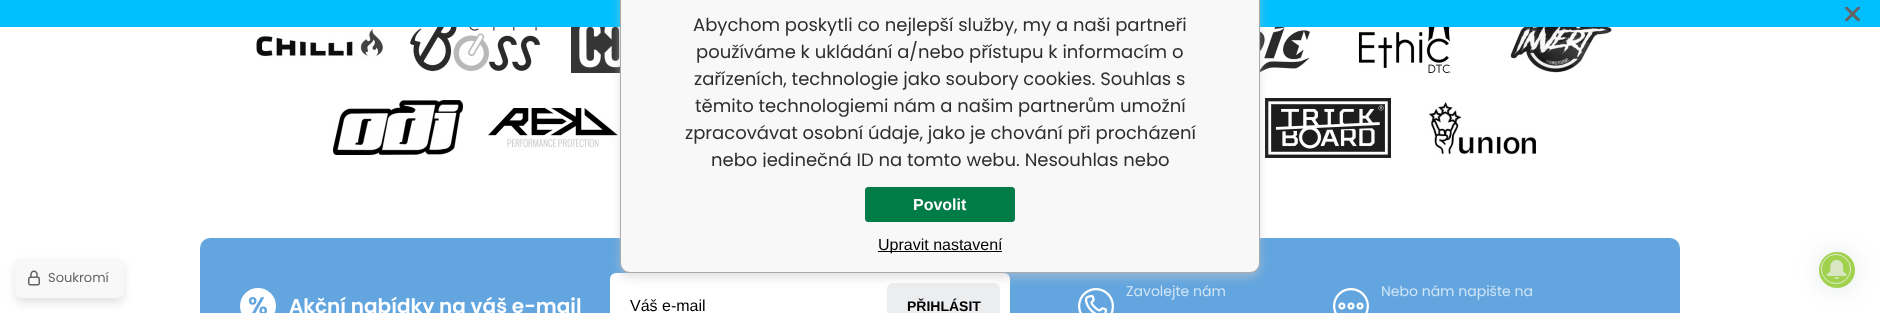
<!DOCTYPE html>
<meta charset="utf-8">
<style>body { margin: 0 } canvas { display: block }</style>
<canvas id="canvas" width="1880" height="313"></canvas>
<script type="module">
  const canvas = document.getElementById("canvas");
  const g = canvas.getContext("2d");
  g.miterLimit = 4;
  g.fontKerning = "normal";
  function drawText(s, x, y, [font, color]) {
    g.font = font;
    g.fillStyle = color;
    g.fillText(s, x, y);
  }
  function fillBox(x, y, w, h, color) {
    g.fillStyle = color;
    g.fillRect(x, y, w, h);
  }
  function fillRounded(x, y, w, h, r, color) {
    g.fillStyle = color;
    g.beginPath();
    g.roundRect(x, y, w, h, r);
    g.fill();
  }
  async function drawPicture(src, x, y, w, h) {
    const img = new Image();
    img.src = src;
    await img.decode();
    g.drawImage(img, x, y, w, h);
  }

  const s1 = ["18px Poppins", "#2E2E2E"];
  const s2 = ["bold 16px Liberation Sans", "#FFFFFF"];
  const s3 = ["16px Liberation Sans", "#000000"];
  const s4 = ["13px Poppins", "#646464"];
  const s5 = ["14px Poppins", "#D0E4F5"];
  const s6 = ["600 24px Poppins", "#62A5DF"];
  const s7 = ["600 20px Poppins", "#FFFFFF"];
  const s8 = ["bold 14px Liberation Sans", "#000000"];

  fillBox(0, 0, 1880, 313, "#FFFFFF");
  fillBox(0, 0, 1880, 27, "#00BFFF");
  await drawPicture("pic5.png", 571, 27, 49, 46);
  await drawPicture("pic6.png", 1260, 27, 51, 46);
  await drawPicture("pic10.png", 488, 107, 130, 43);
  await drawPicture("pic11.png", 1265, 98, 126, 60);
  fillRounded(200, 238, 1480, 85, 10, "#62A5DF");
  await drawPicture("pic13.png", 1078, 288, 36, 25);
  fillRounded(610, 273, 400, 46, 6, "#FFFFFF");
  fillRounded(887, 283, 113, 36, 6, "#ECEDEF");
  g.fillStyle = "rgba(200, 200, 200, 0.5)";
  g.filter = "blur(5px)";
  g.beginPath();
  g.roundRect(620, -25, 640, 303, 10);
  g.fill();
  g.filter = "none";
  g.fillStyle = "#F8F8F8";
  g.beginPath();
  g.roundRect(620.5, -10.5, 639, 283, 9.5);
  g.fill();
  g.strokeStyle = "#AAAAAA";
  g.stroke();
  drawText("Abychom poskytli co nejlepší služby, my a naši partneři", 693, 31, s1);
  drawText("používáme k ukládání a/nebo přístupu k informacím o", 696, 58, s1);
  drawText("zařízeních, technologie jako soubory cookies. Souhlas s", 694, 85, s1);
  drawText("těmito technologiemi nám a našim partnerům umožní", 695, 112, s1);
  drawText("zpracovávat osobní údaje, jako je chování při procházení", 685, 139, s1);
  g.save();
  g.beginPath();
  g.rect(671, 11, 538, 156);
  g.clip();
  drawText("nebo jedinečná ID na tomto webu. Nesouhlas nebo", 711, 166, s1);
  g.restore();
  g.fillStyle = "#007C47";
  g.beginPath();
  g.roundRect(865.5, 187.5, 149, 34, 2.5);
  g.fill();
  g.strokeStyle = "#007C47";
  g.stroke();
  drawText("Povolit", 913, 210, s2);
  fillBox(878, 251, 124, 1, "#000000");
  drawText("Upravit nastavení", 878, 250, s3);
  g.fillStyle = "rgba(200, 200, 200, 0.5)";
  g.filter = "blur(5px)";
  g.beginPath();
  g.roundRect(15, 263, 109, 40, 7);
  g.fill();
  g.filter = "none";
  fillRounded(15, 258, 109, 40, 7, "#F8F8F8");
  await drawPicture("pic1.png", 28, 270, 12, 16);
  drawText("Soukromí", 48, 282, s4);
  g.fillStyle = "rgba(68, 84, 97, 0.15)";
  g.filter = "blur(12px)";
  g.beginPath();
  g.roundRect(1819, 253, 36, 36, 18);
  g.fill();
  g.filter = "none";
  g.fillStyle = "#A1D24D";
  g.beginPath();
  g.arc(1837, 270, 18, 0, Math.PI * 2);
  g.fill();
  g.beginPath();
  g.arc(1836, 269, 14.6, 0, Math.PI * 2);
  g.strokeStyle = "#F1F1F1";
  g.lineWidth = 0.8;
  g.stroke();
  await drawPicture("pic2.png", 1827, 260, 20, 20);
  g.save();
  g.beginPath();
  g.rect(1845, 7, 15, 14);
  g.clip();
  g.beginPath();
  g.moveTo(1846.5, 8);
  g.lineTo(1858.5, 20);
  g.moveTo(1846.5, 20);
  g.lineTo(1858.5, 8);
  g.strokeStyle = "#646464";
  g.lineWidth = 3;
  g.lineCap = "round";
  g.stroke();
  g.restore();
  await drawPicture("pic3.png", 256, 29, 127, 30);
  await drawPicture("pic4.png", 410, 27, 130, 46);
  await drawPicture("pic7.png", 1359, 27, 92, 46);
  await drawPicture("pic8.png", 1510, 27, 102, 46);
  await drawPicture("pic9.png", 333, 100, 130, 57);
  await drawPicture("pic12.png", 1429, 100, 107, 55);
  drawText("Zavolejte nám", 1126, 296, s5);
  await drawPicture("pic14.png", 1333, 288, 36, 25);
  drawText("Nebo nám napište na", 1381, 296, s5);
  g.fillStyle = "#FFFFFF";
  g.beginPath();
  g.arc(258, 306, 18, 0, Math.PI * 2);
  g.fill();
  drawText("%", 248, 314, s6);
  drawText("Akční nabídky na váš e-mail", 289, 313, s7);
  drawText("Váš e-mail", 630, 311, s3);
  drawText("PŘIHLÁSIT", 907, 311, s8);
</script>
